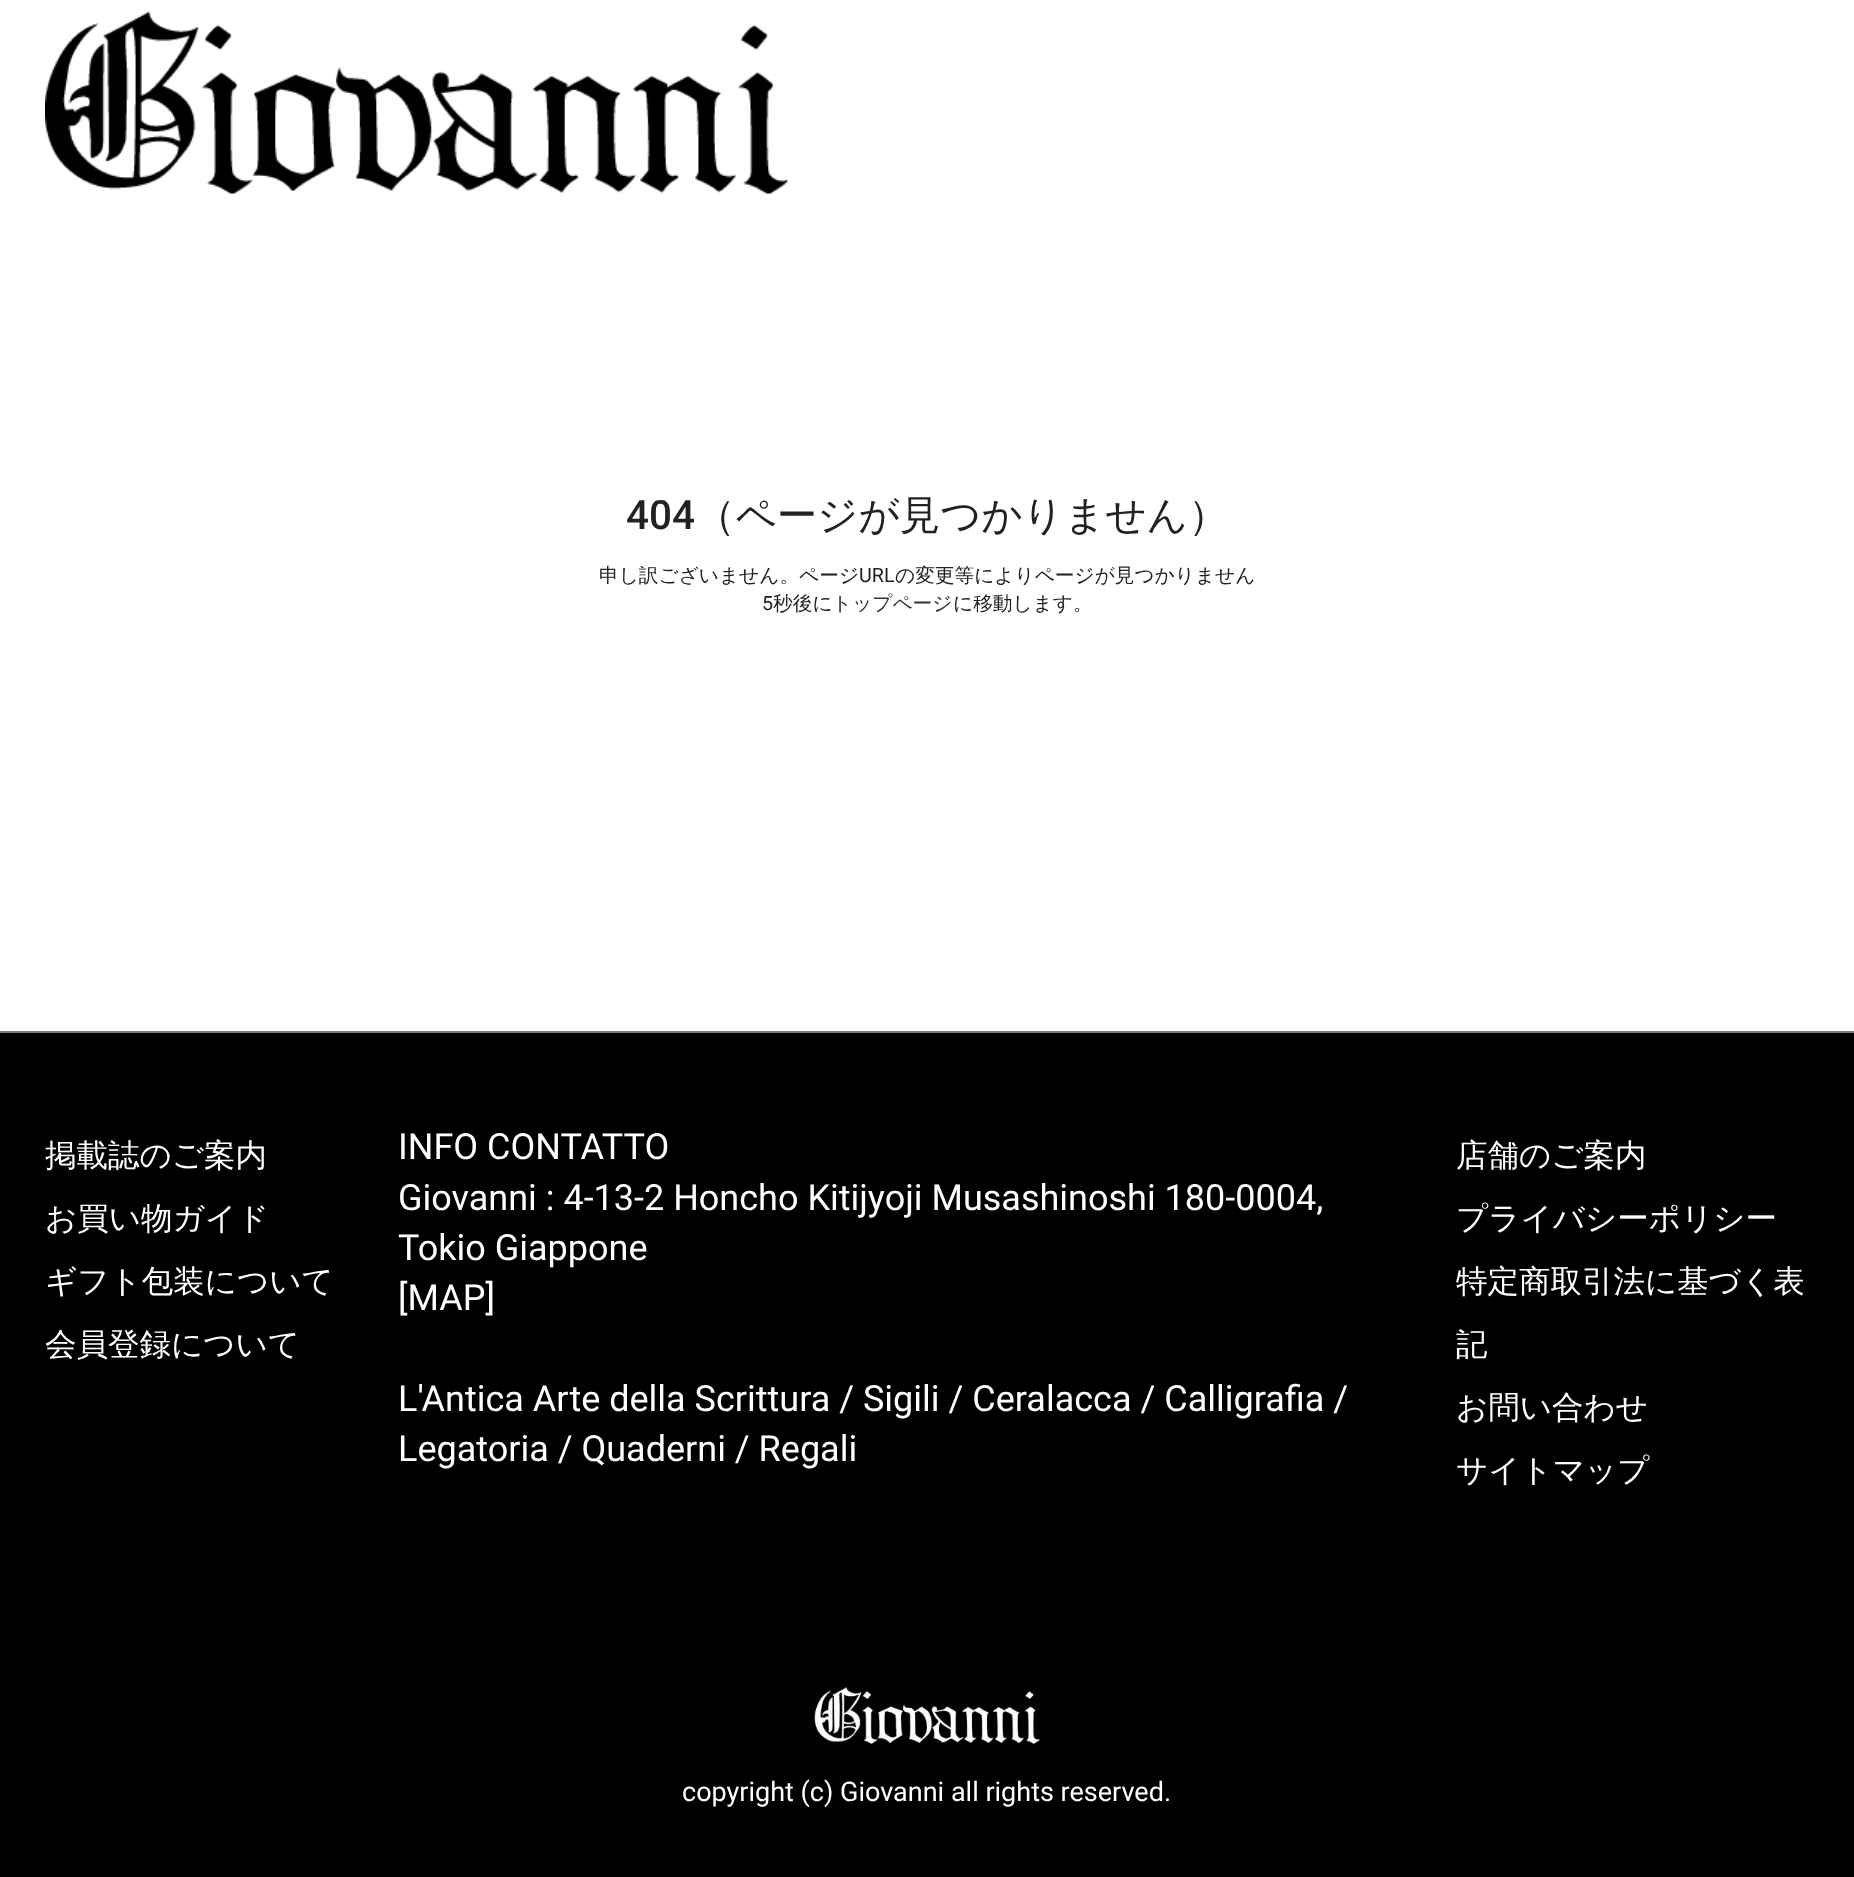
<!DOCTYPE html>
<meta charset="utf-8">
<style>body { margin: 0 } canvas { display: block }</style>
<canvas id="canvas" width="1854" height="1877"></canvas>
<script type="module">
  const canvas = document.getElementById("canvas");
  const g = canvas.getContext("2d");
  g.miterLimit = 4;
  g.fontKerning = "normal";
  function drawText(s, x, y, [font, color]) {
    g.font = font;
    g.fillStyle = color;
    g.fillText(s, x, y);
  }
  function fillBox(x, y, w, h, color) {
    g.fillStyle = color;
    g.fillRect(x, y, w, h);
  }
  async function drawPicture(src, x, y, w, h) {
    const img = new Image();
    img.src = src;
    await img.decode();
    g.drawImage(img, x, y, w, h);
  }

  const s1 = ["500 40.4px Roboto", "#222222"];
  const s2 = ["500 40.4px WenQuanYi Zen Hei", "#222222"];
  const s3 = ["500 19.7px WenQuanYi Zen Hei", "#222222"];
  const s4 = ["19.7px Roboto", "#222222"];
  const s5 = ["500 19.7px WenQuanYi Zen Hei", "#333333"];
  const s6 = ["500 31.5px WenQuanYi Zen Hei", "#FFFFFF"];
  const s7 = ["36px Roboto", "#FFFFFF"];
  const s8 = ["27px Roboto", "#FFFFFF"];

  fillBox(0, 0, 1854, 1877, "#FFFFFF");
  await drawPicture("pic1.png", 45, 11, 743, 183);
  drawText("404", 626, 529, s1);
  drawText("（ページが見つかりません）", 695, 529, s2);
  drawText("申し訳ございません。ページ", 599, 582, s3);
  drawText("URL", 859, 582, s4);
  drawText("の変更等によりページが見つかりません", 895, 582, s3);
  drawText("5", 762, 610, s4);
  drawText("秒後に", 773, 610, s3);
  drawText("トップページ", 832, 610, s5);
  drawText("に移動します。", 953, 610, s3);
  fillBox(0, 1033, 1854, 844, "#000000");
  fillBox(0, 1031, 1854, 2, "#7D7D7D");
  drawText("掲載誌のご案内", 45, 1166, s6);
  drawText("お買い物ガイド", 45, 1229, s6);
  drawText("ギフト包装について", 45, 1292, s6);
  drawText("会員登録について", 45, 1355, s6);
  drawText("INFO CONTATTO", 398, 1159, s7);
  drawText("Giovanni : 4-13-2 Honcho Kitijyoji Musashinoshi 180-0004,", 398, 1210, s7);
  drawText("Tokio Giappone", 398, 1260, s7);
  drawText("[MAP]", 398, 1310, s7);
  drawText("L'Antica Arte della Scrittura / Sigili / Ceralacca / Calligrafia /", 398, 1411, s7);
  drawText("Legatoria / Quaderni / Regali", 398, 1461, s7);
  drawText("店舗のご案内", 1456, 1166, s6);
  drawText("プライバシーポリシー", 1456, 1229, s6);
  drawText("特定商取引法に基づく表", 1456, 1292, s6);
  drawText("記", 1456, 1355, s6);
  drawText("お問い合わせ", 1456, 1418, s6);
  drawText("サイトマップ", 1456, 1481, s6);
  await drawPicture("pic2.png", 814, 1687, 226, 57);
  drawText("copyright (c) Giovanni all rights reserved.", 682, 1801, s8);
</script>
